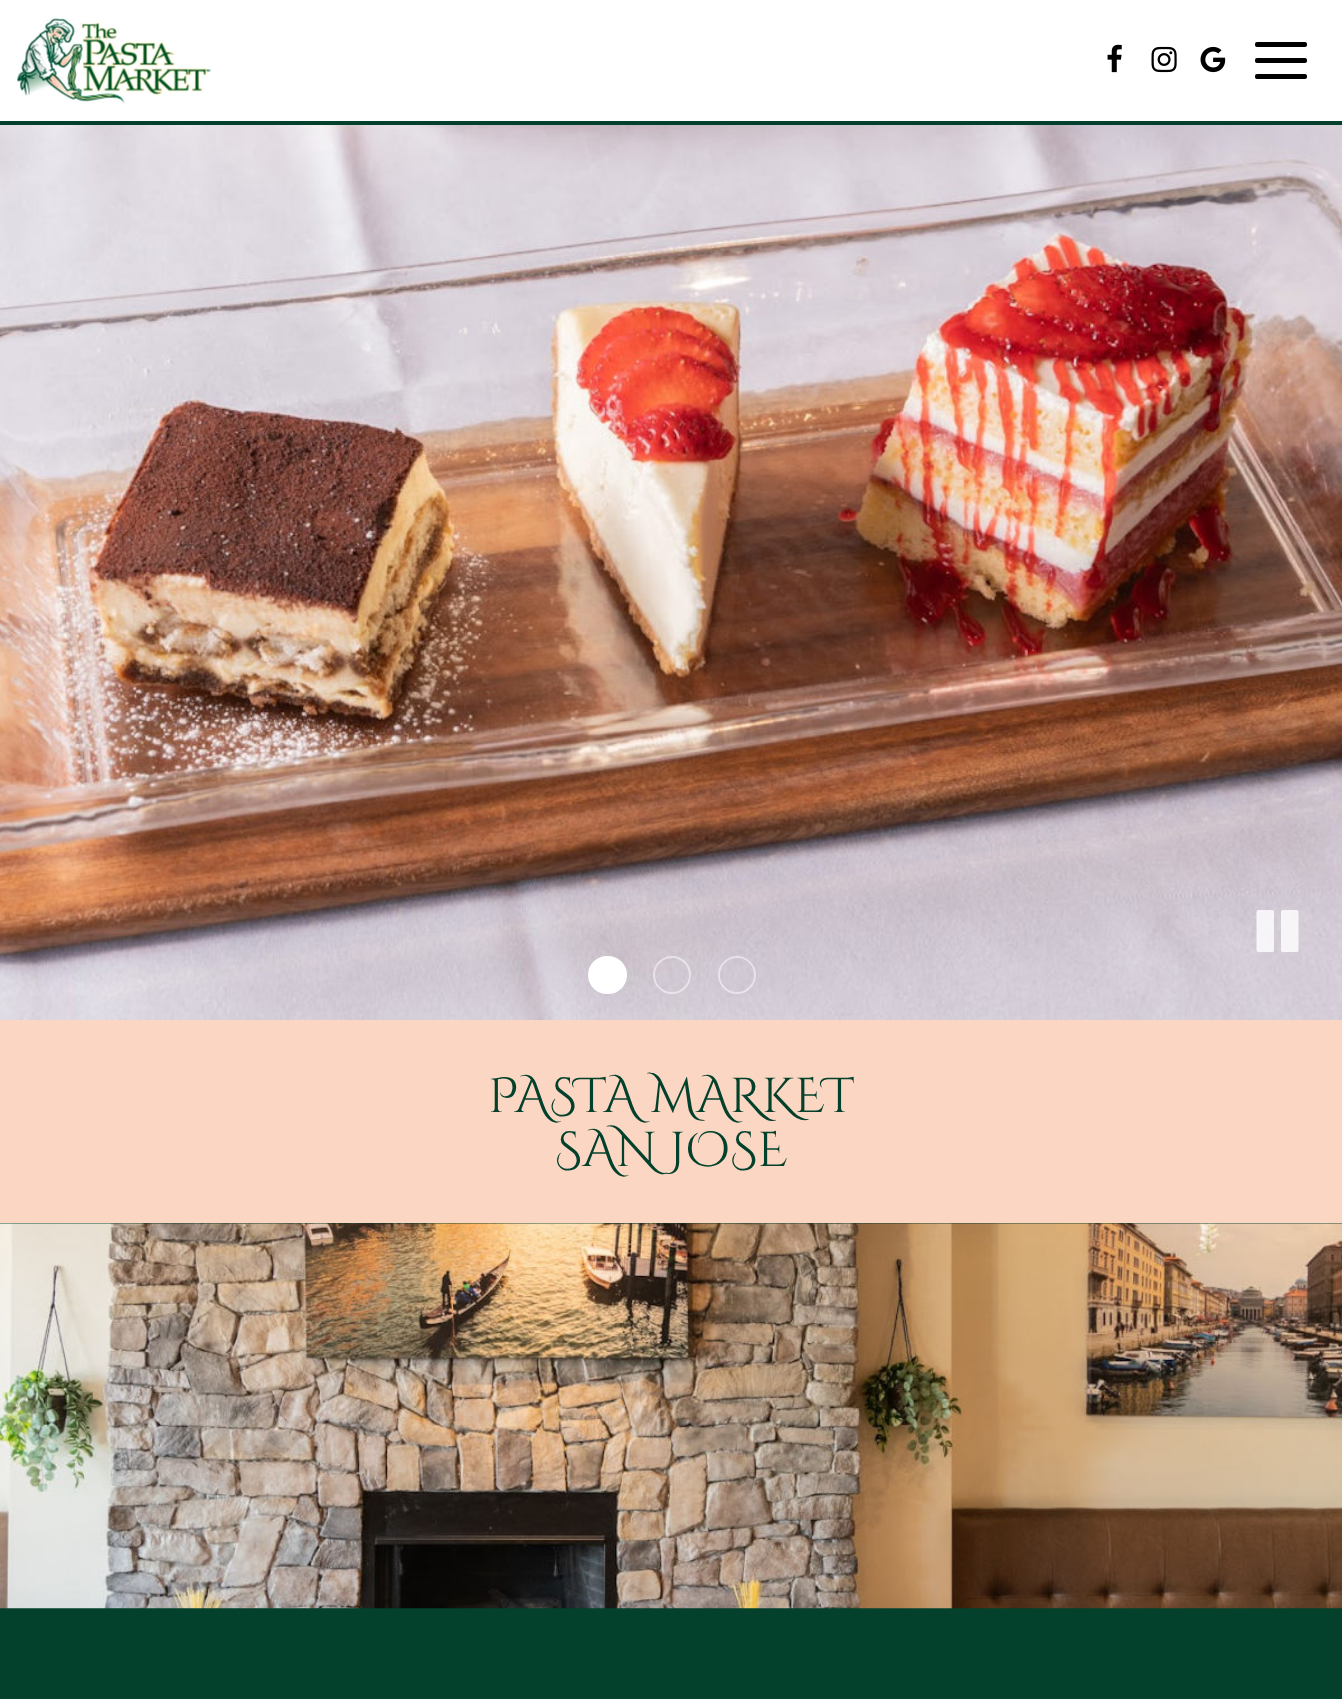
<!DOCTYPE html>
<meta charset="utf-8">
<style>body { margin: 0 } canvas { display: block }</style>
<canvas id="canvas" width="1342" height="1699"></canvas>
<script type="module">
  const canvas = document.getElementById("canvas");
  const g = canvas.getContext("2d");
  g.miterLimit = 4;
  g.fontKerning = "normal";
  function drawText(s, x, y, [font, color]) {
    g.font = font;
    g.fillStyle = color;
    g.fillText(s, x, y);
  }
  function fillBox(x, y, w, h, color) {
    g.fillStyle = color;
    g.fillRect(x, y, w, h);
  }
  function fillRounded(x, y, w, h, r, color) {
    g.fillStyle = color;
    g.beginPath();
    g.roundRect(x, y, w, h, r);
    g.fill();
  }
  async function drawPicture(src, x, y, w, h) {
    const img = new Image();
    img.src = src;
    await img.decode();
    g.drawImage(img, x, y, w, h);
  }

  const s1 = ["49px Cinzel Decorative", "#03412C"];

  fillBox(0, 0, 1342, 1699, "#FBD7C3");
  fillBox(0, 0, 1342, 121, "#FFFFFF");
  await drawPicture("pic1.png", 17, 18, 194, 86);
  fillBox(0, 121, 1342, 4, "#03412C");
  fillRounded(1255, 42, 52, 5, 2, "#000000");
  fillRounded(1255, 58, 52, 5, 2, "#000000");
  fillRounded(1255, 74, 52, 5, 2, "#000000");
  await drawPicture("pic2.png", 1107, 44, 15, 29);
  await drawPicture("pic3.png", 1151, 46, 26, 27);
  await drawPicture("pic4.png", 1200, 46, 26, 27);
  await drawPicture("pic5.png", 0, 125, 1342, 895);
  await drawPicture("pic6.png", 1256, 910, 43, 42);
  g.fillStyle = "#FFFFFF";
  g.beginPath();
  g.roundRect(589, 957, 37, 36, 18);
  g.fill();
  g.strokeStyle = "#FFFFFF";
  g.lineWidth = 2;
  g.stroke();
  g.beginPath();
  g.arc(672, 975, 18, 0, Math.PI * 2);
  g.strokeStyle = "rgba(255, 255, 255, 0.5)";
  g.stroke();
  g.beginPath();
  g.arc(737, 975, 18, 0, Math.PI * 2);
  g.stroke();
  drawText("PASTA MARKET", 488, 1112, s1);
  drawText("SAN JOSE", 555, 1166, s1);
  fillBox(0, 1223, 1342, 476, "#03412C");
  await drawPicture("pic7.png", 0, 1223, 1342, 386);
</script>
